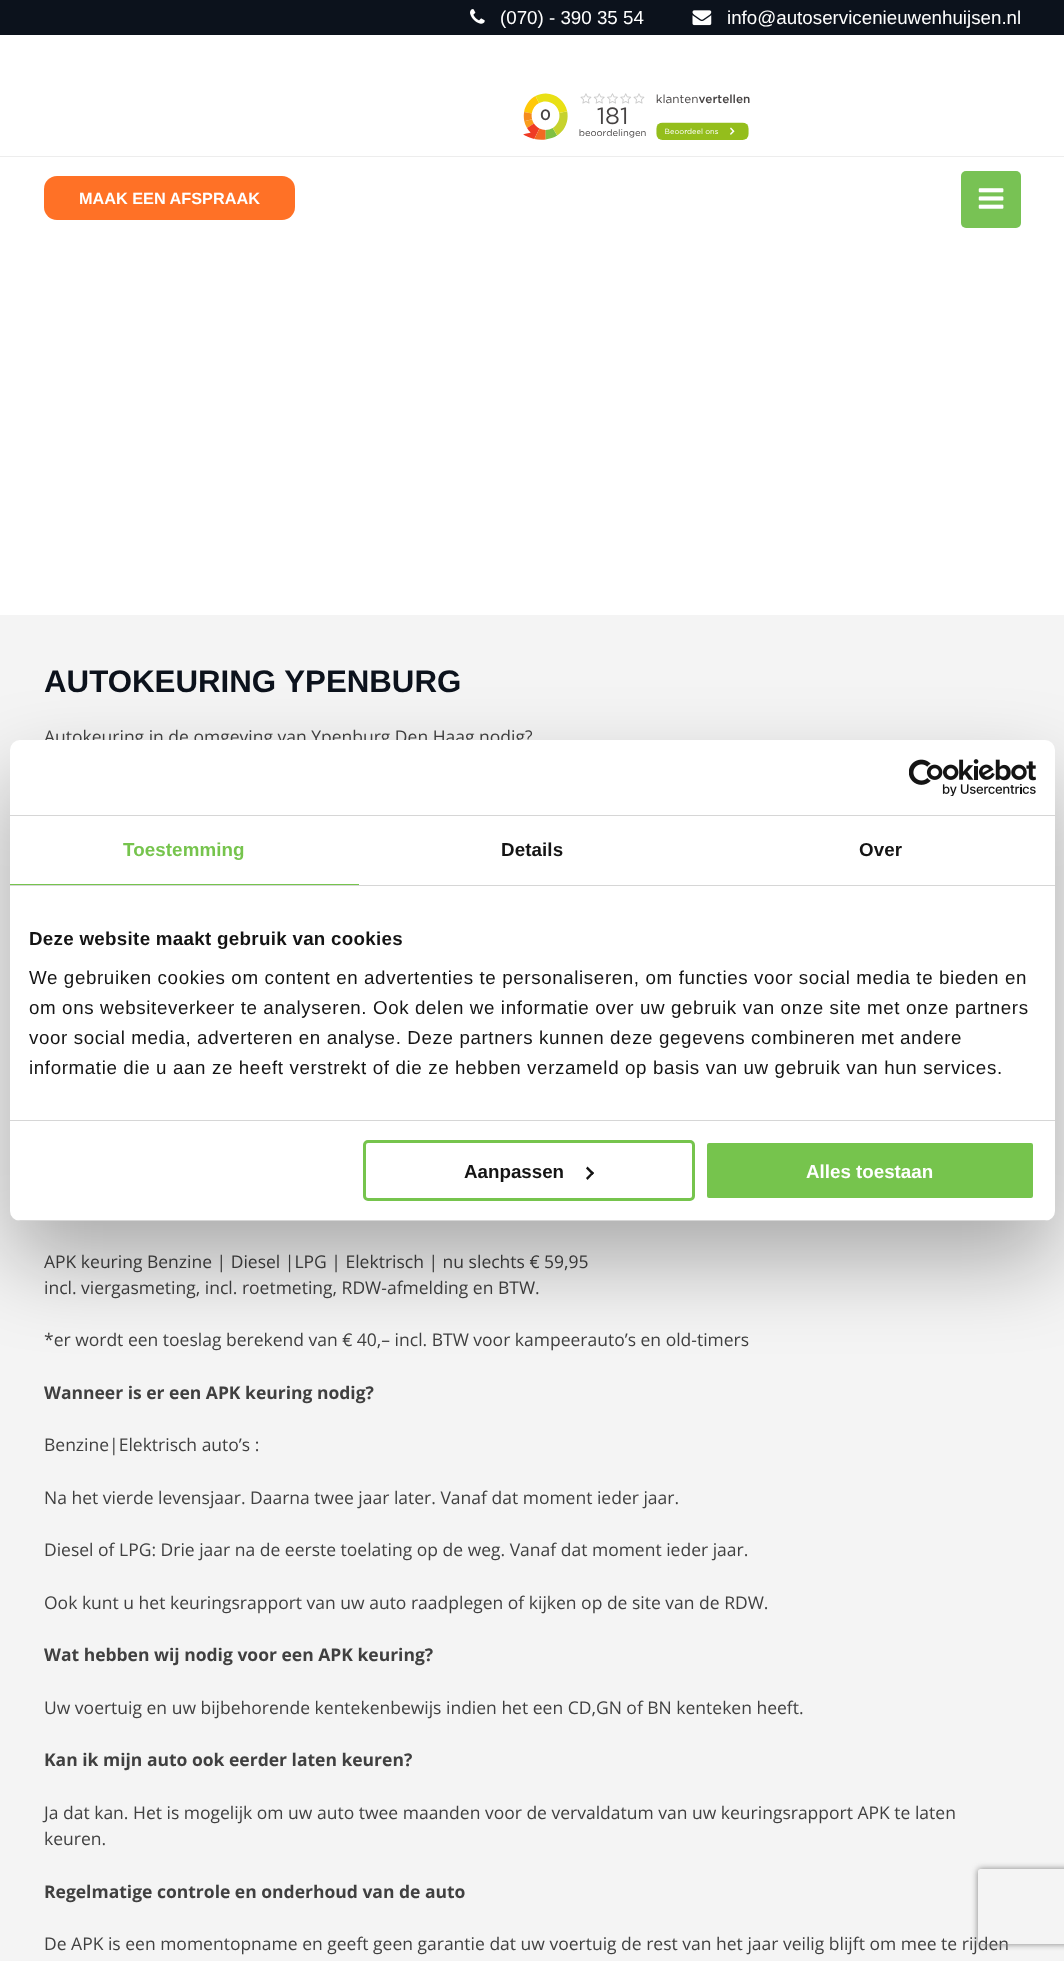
<!DOCTYPE html>
<meta charset="utf-8">
<style>body { margin: 0 } canvas { display: block }</style>
<canvas id="canvas" width="1064" height="1961"></canvas>
<script type="module">
  const canvas = document.getElementById("canvas");
  const g = canvas.getContext("2d");
  g.miterLimit = 4;
  g.fontKerning = "normal";
  function drawText(s, x, y, [font, color]) {
    g.font = font;
    g.fillStyle = color;
    g.fillText(s, x, y);
  }
  function fillBox(x, y, w, h, color) {
    g.fillStyle = color;
    g.fillRect(x, y, w, h);
  }
  function fillRounded(x, y, w, h, r, color) {
    g.fillStyle = color;
    g.beginPath();
    g.roundRect(x, y, w, h, r);
    g.fill();
  }
  async function drawPicture(src, x, y, w, h) {
    const img = new Image();
    img.src = src;
    await img.decode();
    g.drawImage(img, x, y, w, h);
  }

  const s1 = ["18.75px Liberation Sans", "#FFFFFF"];
  const s2 = ["bold 16.25px Liberation Sans", "#FFFFFF"];
  const s3 = ["bold 31.25px Liberation Sans", "#0C121C"];
  const s4 = ["17.5px Open Sans", "#404040"];
  const s5 = ["bold 17.5px Open Sans", "#404040"];
  const s6 = ["bold 18.75px Liberation Sans", "#76C44D"];
  const s7 = ["bold 18.75px Liberation Sans", "#141414"];
  const s8 = ["18.75px Liberation Sans", "#141414"];
  const s9 = ["bold 18.75px Liberation Sans", "#FFFFFF"];

  fillBox(0, 0, 1064, 1961, "#FFFFFF");
  fillBox(0, 0, 1064, 35, "#0C121C");
  await drawPicture("pic1.png", 470, 9, 15, 15);
  g.save();
  g.beginPath();
  g.rect(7, 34, 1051, 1);
  g.clip();
  g.fillStyle = "rgba(0, 0, 0, 0.16)";
  g.filter = "blur(4px)";
  g.beginPath();
  g.rect(0, 39, 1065, 205);
  g.fill();
  g.filter = "none";
  g.restore();
  drawText("(070) - 390 35 54", 500, 24, s1);
  await drawPicture("pic2.png", 692, 10, 20, 16);
  drawText("info@autoservicenieuwenhuijsen.nl", 727, 24, s1);
  await drawPicture("pic3.png", 523, 93, 227, 47);
  fillBox(0, 156, 1064, 1, "#EDEDED");
  fillRounded(44, 176, 251, 44, 13, "#FF7126");
  drawText("MAAK EEN AFSPRAAK", 79, 204, s2);
  fillRounded(961, 171, 60, 57, 5, "#78C254");
  await drawPicture("pic4.png", 978, 188, 26, 21);
  fillBox(0, 240, 1064, 10, "#FFFFFF");
  fillBox(0, 615, 1064, 1346, "#F4F4F4");
  drawText("AUTOKEURING YPENBURG", 44, 692, s3);
  drawText("Autokeuring in de omgeving van Ypenburg Den Haag nodig?", 44, 743, s4);
  drawText("APK keuring Benzine | Diesel |LPG | Elektrisch | nu slechts € 59,95", 44, 1268, s4);
  drawText("incl. viergasmeting, incl. roetmeting, RDW-afmelding en BTW.", 44, 1294, s4);
  drawText("*er wordt een toeslag berekend van € 40,– incl. BTW voor kampeerauto’s en old-timers", 44, 1346, s4);
  drawText("Wanneer is er een APK keuring nodig?", 44, 1399, s5);
  drawText("Benzine|Elektrisch auto’s :", 44, 1451, s4);
  drawText("Na het vierde levensjaar. Daarna twee jaar later. Vanaf dat moment ieder jaar.", 44, 1504, s4);
  drawText("Diesel of LPG: Drie jaar na de eerste toelating op de weg. Vanaf dat moment ieder jaar.", 44, 1556, s4);
  drawText("Ook kunt u het keuringsrapport van uw auto raadplegen of kijken op de site van de RDW.", 44, 1609, s4);
  drawText("Wat hebben wij nodig voor een APK keuring?", 44, 1661, s5);
  drawText("Uw voertuig en uw bijbehorende kentekenbewijs indien het een CD,GN of BN kenteken heeft.", 44, 1714, s4);
  drawText("Kan ik mijn auto ook eerder laten keuren?", 44, 1766, s5);
  drawText("Ja dat kan. Het is mogelijk om uw auto twee maanden voor de vervaldatum van uw keuringsrapport APK te laten", 44, 1819, s4);
  drawText("keuren.", 44, 1845, s4);
  drawText("Regelmatige controle en onderhoud van de auto", 44, 1898, s5);
  drawText("De APK is een momentopname en geeft geen garantie dat uw voertuig de rest van het jaar veilig blijft om mee te rijden", 44, 1950, s4);
  g.fillStyle = "rgba(0, 0, 0, 0.3)";
  g.filter = "blur(42.5px)";
  g.beginPath();
  g.roundRect(10, 780, 1045, 481, 10);
  g.fill();
  g.filter = "none";
  fillRounded(10, 740, 1045, 481, 10, "#FFFFFF");
  fillBox(10, 815, 1045, 1, "#D6D6D6");
  await drawPicture("pic5.png", 909, 759, 127, 37);
  fillBox(10, 885, 1045, 1, "#D6D6D6");
  fillBox(10, 884, 349, 1, "#76C44D");
  g.letterSpacing = "0.1px";
  drawText("Toestemming", 123, 856, s6);
  drawText("Details", 501, 856, s7);
  drawText("Over", 859, 856, s7);
  fillBox(10, 1120, 1045, 1, "#D6D6D6");
  g.letterSpacing = "0.3px";
  drawText("Deze website maakt gebruik van cookies", 29, 945, s7);
  g.letterSpacing = "0.62px";
  drawText("We gebruiken cookies om content en advertenties te personaliseren, om functies voor social media te bieden en", 29, 984, s8);
  drawText("om ons websiteverkeer te analyseren. Ook delen we informatie over uw gebruik van onze site met onze partners", 29, 1014, s8);
  drawText("voor social media, adverteren en analyse. Deze partners kunnen deze gegevens combineren met andere", 29, 1044, s8);
  drawText("informatie die u aan ze heeft verstrekt of die ze hebben verzameld op basis van uw gebruik van hun services.", 29, 1074, s8);
  g.save();
  g.beginPath();
  g.roundRect(10, 740, 1045, 481, 10);
  g.clip();
  fillBox(10, 1220, 1045, 1, "#D6D6D6");
  g.restore();
  g.beginPath();
  g.roundRect(364.5, 1141.5, 329, 58, 3.5);
  g.strokeStyle = "#76C44D";
  g.lineWidth = 3;
  g.stroke();
  g.letterSpacing = "0px";
  drawText("Aanpassen", 464, 1178, s7);
  g.beginPath();
  g.moveTo(587.5, 1166.5);
  g.lineTo(594, 1173);
  g.lineTo(592.5, 1175);
  g.lineTo(586, 1168.5);
  g.closePath();
  g.fill();
  g.beginPath();
  g.moveTo(592.5, 1171.5);
  g.lineTo(594, 1173);
  g.lineTo(587.5, 1180);
  g.lineTo(586, 1178);
  g.closePath();
  g.fill();
  g.fillStyle = "#76C44D";
  g.beginPath();
  g.roundRect(705.5, 1141.5, 329, 58, 3.5);
  g.fill();
  g.strokeStyle = "#FFFFFF";
  g.stroke();
  drawText("Alles toestaan", 806, 1178, s9);
  g.save();
  g.beginPath();
  g.moveTo(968, 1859);
  g.lineTo(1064, 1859);
  g.lineTo(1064, 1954);
  g.lineTo(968, 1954);
  g.closePath();
  g.moveTo(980.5, 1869);
  g.lineTo(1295.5, 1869);
  g.bezierCurveTo(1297, 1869, 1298, 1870, 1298, 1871.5);
  g.lineTo(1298, 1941.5);
  g.bezierCurveTo(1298, 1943, 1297, 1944, 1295.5, 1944);
  g.lineTo(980.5, 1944);
  g.bezierCurveTo(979, 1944, 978, 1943, 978, 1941.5);
  g.lineTo(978, 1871.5);
  g.bezierCurveTo(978, 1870, 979, 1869, 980.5, 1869);
  g.closePath();
  g.clip("evenodd");
  g.fillStyle = "#808080";
  g.filter = "blur(3px)";
  g.beginPath();
  g.roundRect(978, 1869, 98, 75, 2.5);
  g.fill();
  g.filter = "none";
  g.restore();
</script>
